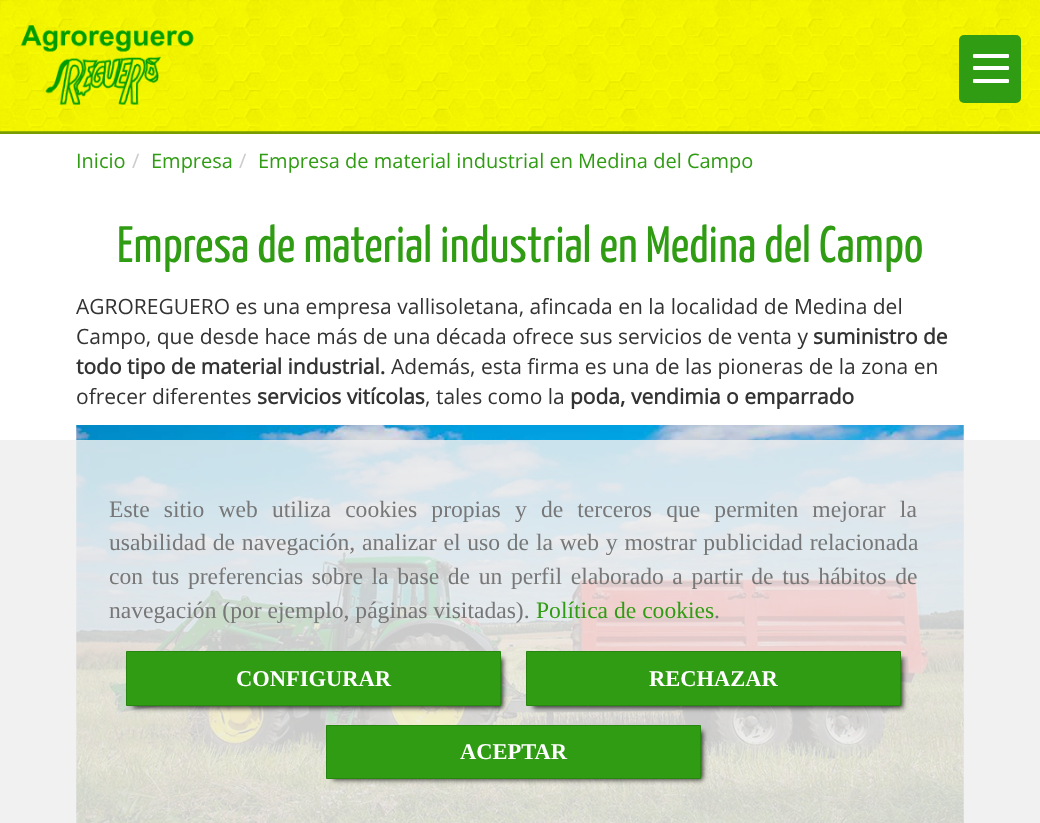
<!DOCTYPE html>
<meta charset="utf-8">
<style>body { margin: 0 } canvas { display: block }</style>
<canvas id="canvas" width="1040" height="823"></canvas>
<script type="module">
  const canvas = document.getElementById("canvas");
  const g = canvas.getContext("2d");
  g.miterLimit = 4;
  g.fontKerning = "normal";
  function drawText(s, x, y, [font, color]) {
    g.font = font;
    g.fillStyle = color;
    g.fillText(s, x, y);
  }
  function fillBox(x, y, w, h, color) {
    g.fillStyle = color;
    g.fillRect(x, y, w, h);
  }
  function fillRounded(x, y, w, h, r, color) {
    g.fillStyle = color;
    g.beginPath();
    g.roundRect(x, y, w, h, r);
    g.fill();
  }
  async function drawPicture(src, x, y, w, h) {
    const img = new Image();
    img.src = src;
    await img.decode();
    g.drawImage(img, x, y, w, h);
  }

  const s1 = ["20px Open Sans", "#2F9C13"];
  const s2 = ["20px Open Sans", "#CCCCCC"];
  const s3 = ["200 51.25px Yanone Kaffeesatz", "#2F9C13"];
  const s4 = ["21px Open Sans", "#333333"];
  const s5 = ["bold 21px Open Sans", "#333333"];
  const s6 = ["23.6px Liberation Serif", "#777777"];
  const s7 = ["23.6px Liberation Serif", "#2F9C13"];
  const s8 = ["bold 22.5px Liberation Serif", "#FFFFFF"];

  fillBox(0, 0, 1040, 823, "#FFFFFF");
  fillBox(0, 440, 1040, 383, "#F1F1F1");
  fillBox(0, 131, 1040, 3, "#799C00");
  await drawPicture("pic1.png", 0, 0, 1040, 132);
  await drawPicture("pic2.png", 20, 25, 174, 80);
  fillRounded(959, 35, 62, 68, 5, "#2F9C13");
  fillRounded(973, 66, 36, 4, 1, "#FFFFFF");
  fillRounded(973, 54, 36, 4, 1, "#FFFFFF");
  fillRounded(973, 79, 36, 4, 1, "#FFFFFF");
  drawText("Inicio", 76, 168, s1);
  drawText("/", 132, 168, s2);
  drawText("Empresa", 151, 168, s1);
  drawText("/", 239, 168, s2);
  drawText("Empresa de material industrial en Medina del Campo", 258, 168, s1);
  drawText("Empresa de material industrial en Medina del Campo", 117, 262, s3);
  drawText("AGROREGUERO es una empresa vallisoletana, afincada en la localidad de Medina del", 76, 314, s4);
  drawText("Campo, que desde hace más de una década ofrece sus servicios de venta y", 76, 344, s4);
  drawText("suministro de", 813, 344, s5);
  drawText("todo tipo de material industrial.", 76, 374, s5);
  drawText("Además, esta firma es una de las pioneras de la zona en", 391, 374, s4);
  drawText("ofrecer diferentes", 76, 404, s4);
  drawText("servicios vitícolas", 257, 404, s5);
  drawText(", tales como la", 425, 404, s4);
  drawText("poda, vendimia o emparrado", 570, 404, s5);
  await drawPicture("pic3.png", 76, 425, 888, 398);
  g.wordSpacing = "8.25px";
  drawText("Este sitio web utiliza cookies propias y de terceros que permiten mejorar la", 109, 517, s6);
  g.wordSpacing = "0.9px";
  drawText("usabilidad de navegación, analizar el uso de la web y mostrar publicidad relacionada", 109, 550, s6);
  g.wordSpacing = "2.75px";
  drawText("con tus preferencias sobre la base de un perfil elaborado a partir de tus hábitos de", 109, 584, s6);
  g.wordSpacing = "0px";
  drawText("navegación (por ejemplo, páginas visitadas).", 109, 618, s6);
  drawText("Política de cookies", 536, 618, s7);
  drawText(".", 714, 618, s6);
  g.fillStyle = "rgba(0, 0, 0, 0.75)";
  g.filter = "blur(2.5px)";
  g.beginPath();
  g.rect(133, 658, 370, 50);
  g.fill();
  g.filter = "none";
  g.fillStyle = "#2F9C13";
  g.beginPath();
  g.rect(126.5, 651.5, 374, 54);
  g.fill();
  g.strokeStyle = "#288510";
  g.stroke();
  drawText("CONFIGURAR", 236, 686, s8);
  g.fillStyle = "rgba(0, 0, 0, 0.75)";
  g.filter = "blur(2.5px)";
  g.beginPath();
  g.rect(533, 658, 370, 50);
  g.fill();
  g.filter = "none";
  g.fillStyle = "#2F9C13";
  g.beginPath();
  g.rect(526.5, 651.5, 374, 54);
  g.fill();
  g.stroke();
  drawText("RECHAZAR", 649, 686, s8);
  g.fillStyle = "rgba(0, 0, 0, 0.75)";
  g.filter = "blur(2.5px)";
  g.beginPath();
  g.rect(333, 731, 370, 49);
  g.fill();
  g.filter = "none";
  g.fillStyle = "#2F9C13";
  g.beginPath();
  g.rect(326.5, 725.5, 374, 53);
  g.fill();
  g.stroke();
  drawText("ACEPTAR", 460, 759, s8);
</script>
